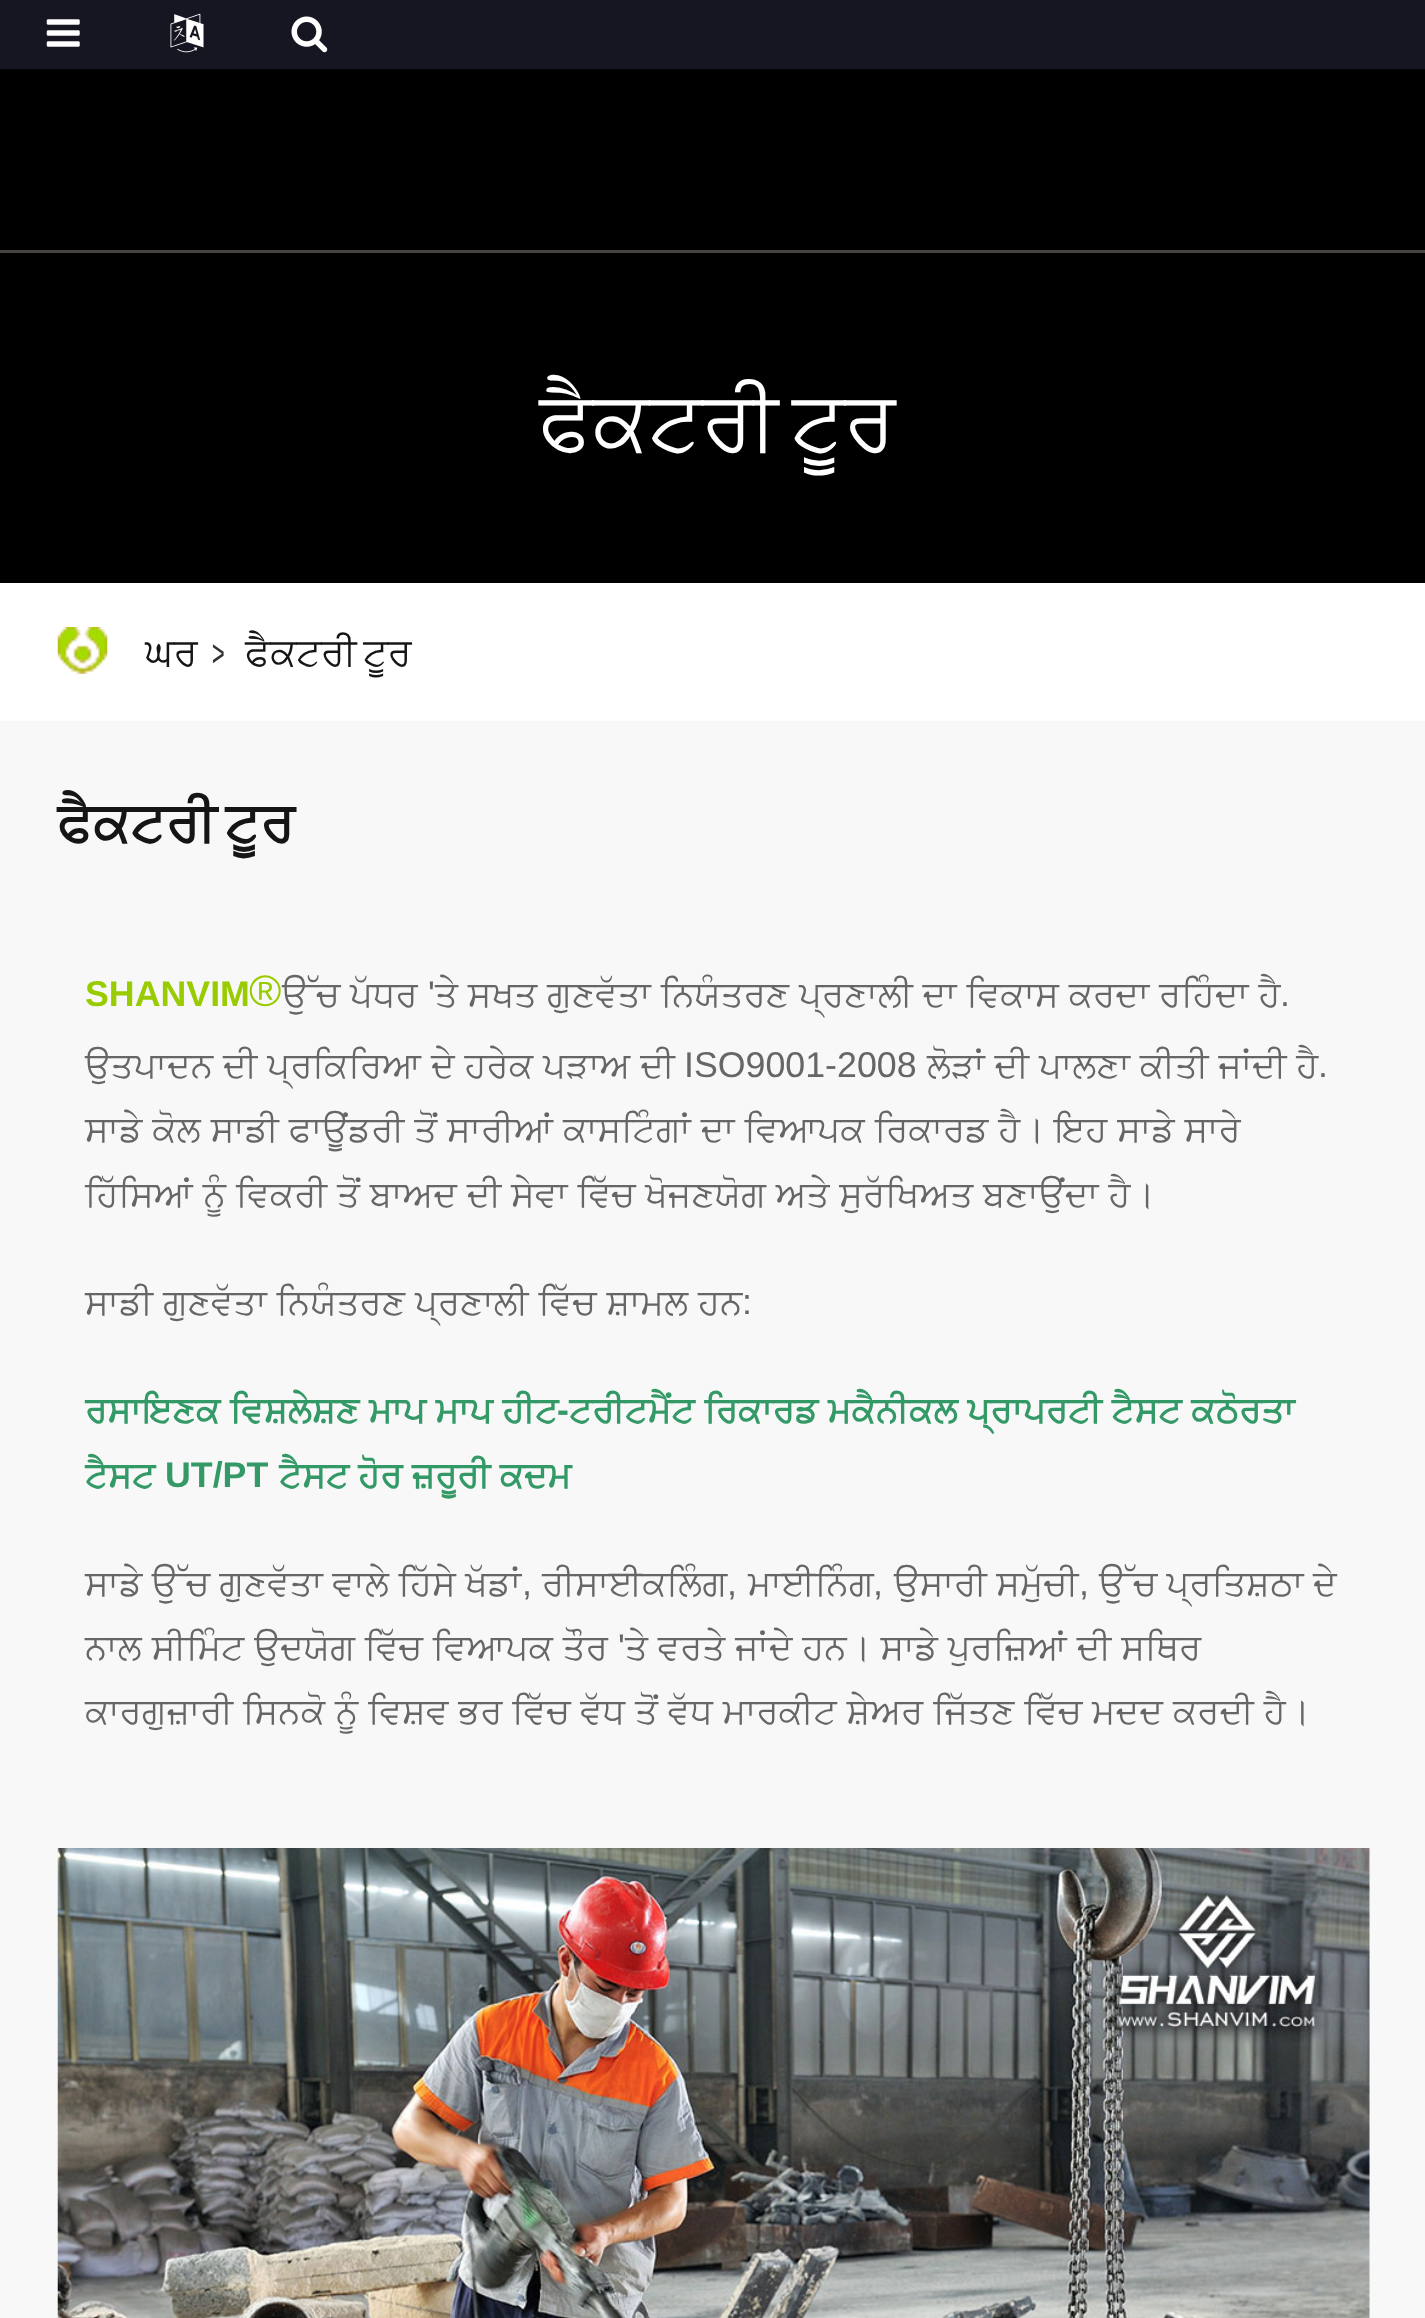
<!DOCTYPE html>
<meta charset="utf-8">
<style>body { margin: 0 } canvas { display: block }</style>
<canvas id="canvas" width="1425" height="2318"></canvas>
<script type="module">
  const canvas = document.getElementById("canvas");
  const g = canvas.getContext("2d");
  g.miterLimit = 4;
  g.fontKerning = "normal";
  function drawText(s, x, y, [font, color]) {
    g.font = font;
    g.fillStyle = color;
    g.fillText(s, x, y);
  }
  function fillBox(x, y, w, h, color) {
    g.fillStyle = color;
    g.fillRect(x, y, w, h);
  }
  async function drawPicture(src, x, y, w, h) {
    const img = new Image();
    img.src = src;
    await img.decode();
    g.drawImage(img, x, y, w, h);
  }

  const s1 = ["82.5px FreeSans", "#FFFFFF"];
  const s2 = ["38.5px FreeSans", "#151515"];
  const s3 = ["300 38.5px Oswald", "#333333"];
  const s4 = ["bold 55px FreeSans", "#151515"];
  const s5 = ["bold 35.75px Liberation Sans", "#99CC00"];
  const s6 = ["44px Liberation Sans", "#99CC00"];
  const s7 = ["35.75px FreeSans", "#666666"];
  const s8 = ["35.75px Liberation Sans", "#666666"];
  const s9 = ["bold 35.75px FreeSans", "#339966"];
  const s10 = ["bold 35.75px Liberation Sans", "#339966"];

  fillBox(0, 0, 1425, 2318, "#FFFFFF");
  fillBox(0, 0, 1425, 69, "#161622");
  await drawPicture("pic1.png", 46, 19, 34, 28);
  await drawPicture("pic2.png", 170, 13, 34, 40);
  await drawPicture("pic3.png", 291, 16, 37, 37);
  fillBox(0, 250, 1425, 3, "#464341");
  fillBox(0, 69, 1425, 181, "#000000");
  fillBox(0, 253, 1425, 330, "#000000");
  g.wordSpacing = "-7px";
  drawText("ਫੈਕਟਰੀ ਟੂਰ", 539, 449, s1);
  await drawPicture("pic4.png", 57, 627, 51, 47);
  g.wordSpacing = "0px";
  drawText("ਘਰ", 145, 665, s2);
  drawText(">", 211, 665, s3);
  g.wordSpacing = "-3px";
  drawText("ਫੈਕਟਰੀ ਟੂਰ", 245, 665, s2);
  fillBox(0, 721, 1425, 1597, "#F8F8F8");
  g.wordSpacing = "-5px";
  drawText("ਫੈਕਟਰੀ ਟੂਰ", 57, 841, s4);
  g.wordSpacing = "0px";
  drawText("SHANVIM", 85, 1006, s5);
  drawText("®", 249, 1006, s6);
  g.wordSpacing = "1px";
  drawText("ਉੱਚ ਪੱਧਰ", 282, 1006, s7);
  g.wordSpacing = "0px";
  drawText("'", 428, 1006, s8);
  g.wordSpacing = "1px";
  drawText("ਤੇ ਸਖਤ ਗੁਣਵੱਤਾ ਨਿਯੰਤਰਣ ਪ੍ਰਣਾਲੀ ਦਾ ਵਿਕਾਸ ਕਰਦਾ ਰਹਿੰਦਾ ਹੈ", 435, 1006, s7);
  g.wordSpacing = "0px";
  drawText(".", 1280, 1006, s8);
  g.wordSpacing = "1px";
  drawText("ਉਤਪਾਦਨ ਦੀ ਪ੍ਰਕਿਰਿਆ ਦੇ ਹਰੇਕ ਪੜਾਅ ਦੀ", 85, 1077, s7);
  g.wordSpacing = "0px";
  drawText("ISO9001-2008", 684, 1077, s8);
  g.wordSpacing = "1px";
  drawText("ਲੋੜਾਂ ਦੀ ਪਾਲਣਾ ਕੀਤੀ ਜਾਂਦੀ ਹੈ", 927, 1077, s7);
  g.wordSpacing = "0px";
  drawText(".", 1318, 1077, s8);
  g.wordSpacing = "1px";
  drawText("ਸਾਡੇ ਕੋਲ ਸਾਡੀ ਫਾਊਂਡਰੀ ਤੋਂ ਸਾਰੀਆਂ ਕਾਸਟਿੰਗਾਂ ਦਾ ਵਿਆਪਕ ਰਿਕਾਰਡ ਹੈ। ਇਹ ਸਾਡੇ ਸਾਰੇ", 85, 1141, s7);
  drawText("ਹਿੱਸਿਆਂ ਨੂੰ ਵਿਕਰੀ ਤੋਂ ਬਾਅਦ ਦੀ ਸੇਵਾ ਵਿੱਚ ਖੋਜਣਯੋਗ ਅਤੇ ਸੁਰੱਖਿਅਤ ਬਣਾਉਂਦਾ ਹੈ।", 85, 1206, s7);
  drawText("ਸਾਡੀ ਗੁਣਵੱਤਾ ਨਿਯੰਤਰਣ ਪ੍ਰਣਾਲੀ ਵਿੱਚ ਸ਼ਾਮਲ ਹਨ", 85, 1314, s7);
  g.wordSpacing = "0px";
  drawText(":", 742, 1314, s8);
  g.wordSpacing = "1px";
  drawText("ਰਸਾਇਣਕ ਵਿਸ਼ਲੇਸ਼ਣ ਮਾਪ ਮਾਪ ਹੀਟ", 85, 1422, s9);
  g.wordSpacing = "0px";
  drawText("-", 557, 1422, s10);
  g.wordSpacing = "1px";
  drawText("ਟਰੀਟਮੈਂਟ ਰਿਕਾਰਡ ਮਕੈਨੀਕਲ ਪ੍ਰਾਪਰਟੀ ਟੈਸਟ ਕਠੋਰਤਾ", 569, 1422, s9);
  g.wordSpacing = "0px";
  drawText("ਟੈਸਟ", 85, 1487, s9);
  drawText("UT/PT", 165, 1487, s10);
  g.wordSpacing = "0.5px";
  drawText("ਟੈਸਟ ਹੋਰ ਜ਼ਰੂਰੀ ਕਦਮ", 279, 1487, s9);
  drawText("ਸਾਡੇ ਉੱਚ ਗੁਣਵੱਤਾ ਵਾਲੇ ਹਿੱਸੇ ਖੱਡਾਂ", 85, 1595, s7);
  g.wordSpacing = "0px";
  drawText(",", 522, 1595, s8);
  drawText("ਰੀਸਾਈਕਲਿੰਗ", 542, 1595, s7);
  drawText(",", 727, 1595, s8);
  drawText("ਮਾਈਨਿੰਗ", 748, 1595, s7);
  drawText(",", 873, 1595, s8);
  g.wordSpacing = "0.5px";
  drawText("ਉਸਾਰੀ ਸਮੁੱਚੀ", 894, 1595, s7);
  g.wordSpacing = "0px";
  drawText(",", 1079, 1595, s8);
  g.wordSpacing = "0.5px";
  drawText("ਉੱਚ ਪ੍ਰਤਿਸ਼ਠਾ ਦੇ", 1099, 1595, s7);
  g.wordSpacing = "1px";
  drawText("ਨਾਲ ਸੀਮਿੰਟ ਉਦਯੋਗ ਵਿੱਚ ਵਿਆਪਕ ਤੌਰ", 85, 1659, s7);
  g.wordSpacing = "0px";
  drawText("'", 618, 1659, s8);
  g.wordSpacing = "1px";
  drawText("ਤੇ ਵਰਤੇ ਜਾਂਦੇ ਹਨ। ਸਾਡੇ ਪੁਰਜ਼ਿਆਂ ਦੀ ਸਥਿਰ", 625, 1659, s7);
  drawText("ਕਾਰਗੁਜ਼ਾਰੀ ਸਿਨਕੋ ਨੂੰ ਵਿਸ਼ਵ ਭਰ ਵਿੱਚ ਵੱਧ ਤੋਂ ਵੱਧ ਮਾਰਕੀਟ ਸ਼ੇਅਰ ਜਿੱਤਣ ਵਿੱਚ ਮਦਦ ਕਰਦੀ ਹੈ।", 85, 1723, s7);
  await drawPicture("pic5.png", 57, 1848, 1313, 470);
</script>
